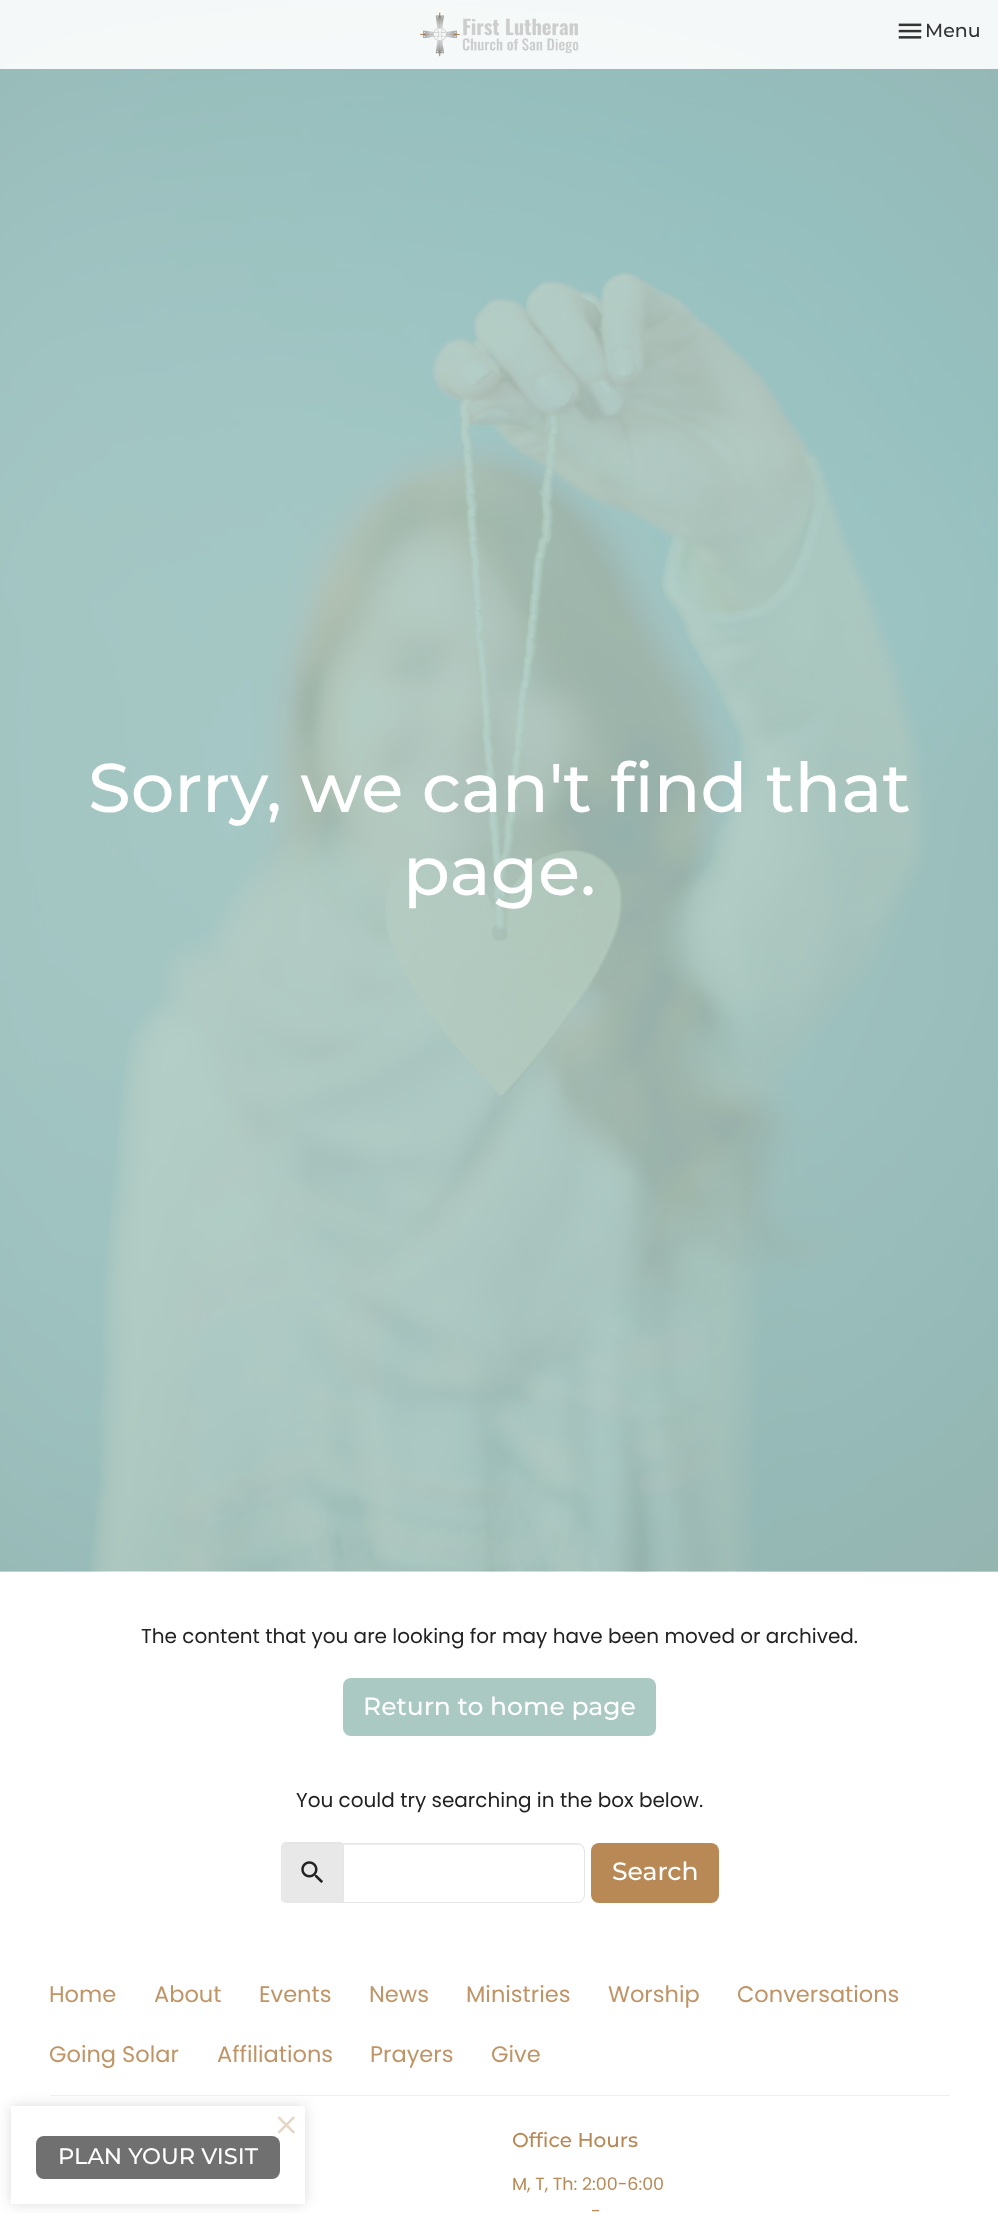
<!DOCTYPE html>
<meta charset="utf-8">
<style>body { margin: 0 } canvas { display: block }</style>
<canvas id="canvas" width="998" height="2213"></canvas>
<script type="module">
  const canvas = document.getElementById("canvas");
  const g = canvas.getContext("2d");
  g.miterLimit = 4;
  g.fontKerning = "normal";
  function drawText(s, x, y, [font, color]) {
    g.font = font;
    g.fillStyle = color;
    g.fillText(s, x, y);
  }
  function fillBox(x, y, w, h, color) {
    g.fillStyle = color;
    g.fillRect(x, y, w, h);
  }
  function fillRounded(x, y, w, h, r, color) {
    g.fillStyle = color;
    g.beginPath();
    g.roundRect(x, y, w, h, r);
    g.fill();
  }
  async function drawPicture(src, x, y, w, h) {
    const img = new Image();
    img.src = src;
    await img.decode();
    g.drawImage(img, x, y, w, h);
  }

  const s1 = ["500 19px Montserrat", "#333333"];
  const s2 = ["500 68.75px Montserrat", "#FFFFFF"];
  const s3 = ["20px Poppins", "#222222"];
  const s4 = ["500 25px Montserrat", "#FFFFFF"];
  const s5 = ["22.5px Poppins", "#BF9466"];
  const s6 = ["500 20px Montserrat", "#B88855"];
  const s7 = ["17.5px Poppins", "#B88855"];
  const s8 = ["500 22.5px Montserrat", "#FFFFFF"];

  fillBox(0, 0, 998, 2213, "#FFFFFF");
  await drawPicture("pic3.png", 0, 0, 998, 1572);
  fillBox(0, 0, 998, 69, "rgba(255, 255, 255, 0.9)");
  await drawPicture("pic1.png", 420, 12, 159, 45);
  await drawPicture("pic2.png", 898, 23, 24, 16);
  drawText("Menu", 925, 37, s1);
  drawText("Sorry, we can't find that", 88, 812, s2);
  drawText("page.", 403, 895, s2);
  drawText("The content that you are looking for may have been moved or archived.", 141, 1643, s3);
  fillRounded(343, 1678, 313, 58, 8, "#A9C9C2");
  drawText("Return to home page", 363, 1715, s4);
  drawText("You could try searching in the box below.", 296, 1807, s3);
  g.fillStyle = "#E8E8E8";
  g.beginPath();
  g.roundRect(281, 1843, 62, 60, [5, 0, 0, 5]);
  g.fill();
  g.fillStyle = "#E6E6E6";
  g.beginPath();
  g.moveTo(286, 1842);
  g.lineTo(342, 1842);
  g.lineTo(342, 1902);
  g.lineTo(286, 1902);
  g.bezierCurveTo(283, 1902, 281, 1900, 281, 1898);
  g.lineTo(281, 1848);
  g.bezierCurveTo(281, 1845, 283, 1842, 286, 1842);
  g.closePath();
  g.moveTo(286, 1844);
  g.lineTo(342, 1844);
  g.lineTo(342, 1901);
  g.lineTo(286, 1901);
  g.bezierCurveTo(284, 1901, 282, 1900, 282, 1898);
  g.lineTo(282, 1848);
  g.bezierCurveTo(282, 1845, 284, 1844, 286, 1844);
  g.closePath();
  g.fill("evenodd");
  await drawPicture("pic4.png", 301, 1861, 22, 22);
  g.fillStyle = "#ECECEC";
  g.beginPath();
  g.moveTo(344, 1845);
  g.lineTo(578, 1845);
  g.bezierCurveTo(581, 1845, 584, 1848, 584, 1851);
  g.bezierCurveTo(584, 1848, 583, 1845, 579, 1844);
  g.lineTo(344, 1844);
  g.closePath();
  g.fill();
  g.beginPath();
  g.roundRect(343.5, 1843.5, 241, 59, [0, 7.5, 7.5, 0]);
  g.strokeStyle = "#E6E6E6";
  g.stroke();
  fillRounded(591, 1843, 128, 60, 8, "#B88855");
  drawText("Search", 612, 1880, s4);
  drawText("Home", 49, 2002, s5);
  drawText("About", 154, 2002, s5);
  drawText("Events", 259, 2002, s5);
  drawText("News", 369, 2002, s5);
  drawText("Ministries", 466, 2002, s5);
  drawText("Worship", 608, 2002, s5);
  drawText("Conversations", 737, 2002, s5);
  drawText("Going Solar", 49, 2062, s5);
  drawText("Affiliations", 217, 2062, s5);
  drawText("Prayers", 370, 2062, s5);
  drawText("Give", 491, 2062, s5);
  fillBox(50, 2095, 900, 1, "#F0F0F0");
  drawText("Office Hours", 512, 2147, s6);
  drawText("M, T, Th: 2:00-6:00", 512, 2190, s7);
  drawText("-", 591, 2217, s7);
  g.save();
  g.beginPath();
  g.moveTo(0, 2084);
  g.lineTo(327, 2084);
  g.lineTo(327, 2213);
  g.lineTo(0, 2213);
  g.closePath();
  g.moveTo(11, 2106);
  g.lineTo(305, 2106);
  g.lineTo(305, 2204);
  g.lineTo(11, 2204);
  g.closePath();
  g.clip("evenodd");
  g.fillStyle = "rgba(0, 0, 0, 0.14)";
  g.filter = "blur(7px)";
  g.beginPath();
  g.rect(11, 2106, 294, 98);
  g.fill();
  g.filter = "none";
  g.restore();
  fillBox(11, 2106, 288, 98, "rgba(255, 255, 255, 0.7)");
  await drawPicture("pic5.png", 277, 2116, 18, 18);
  fillRounded(36, 2136, 244, 43, 8, "rgba(51, 51, 51, 0.7)");
  drawText("PLAN YOUR VISIT", 58, 2164, s8);
</script>
